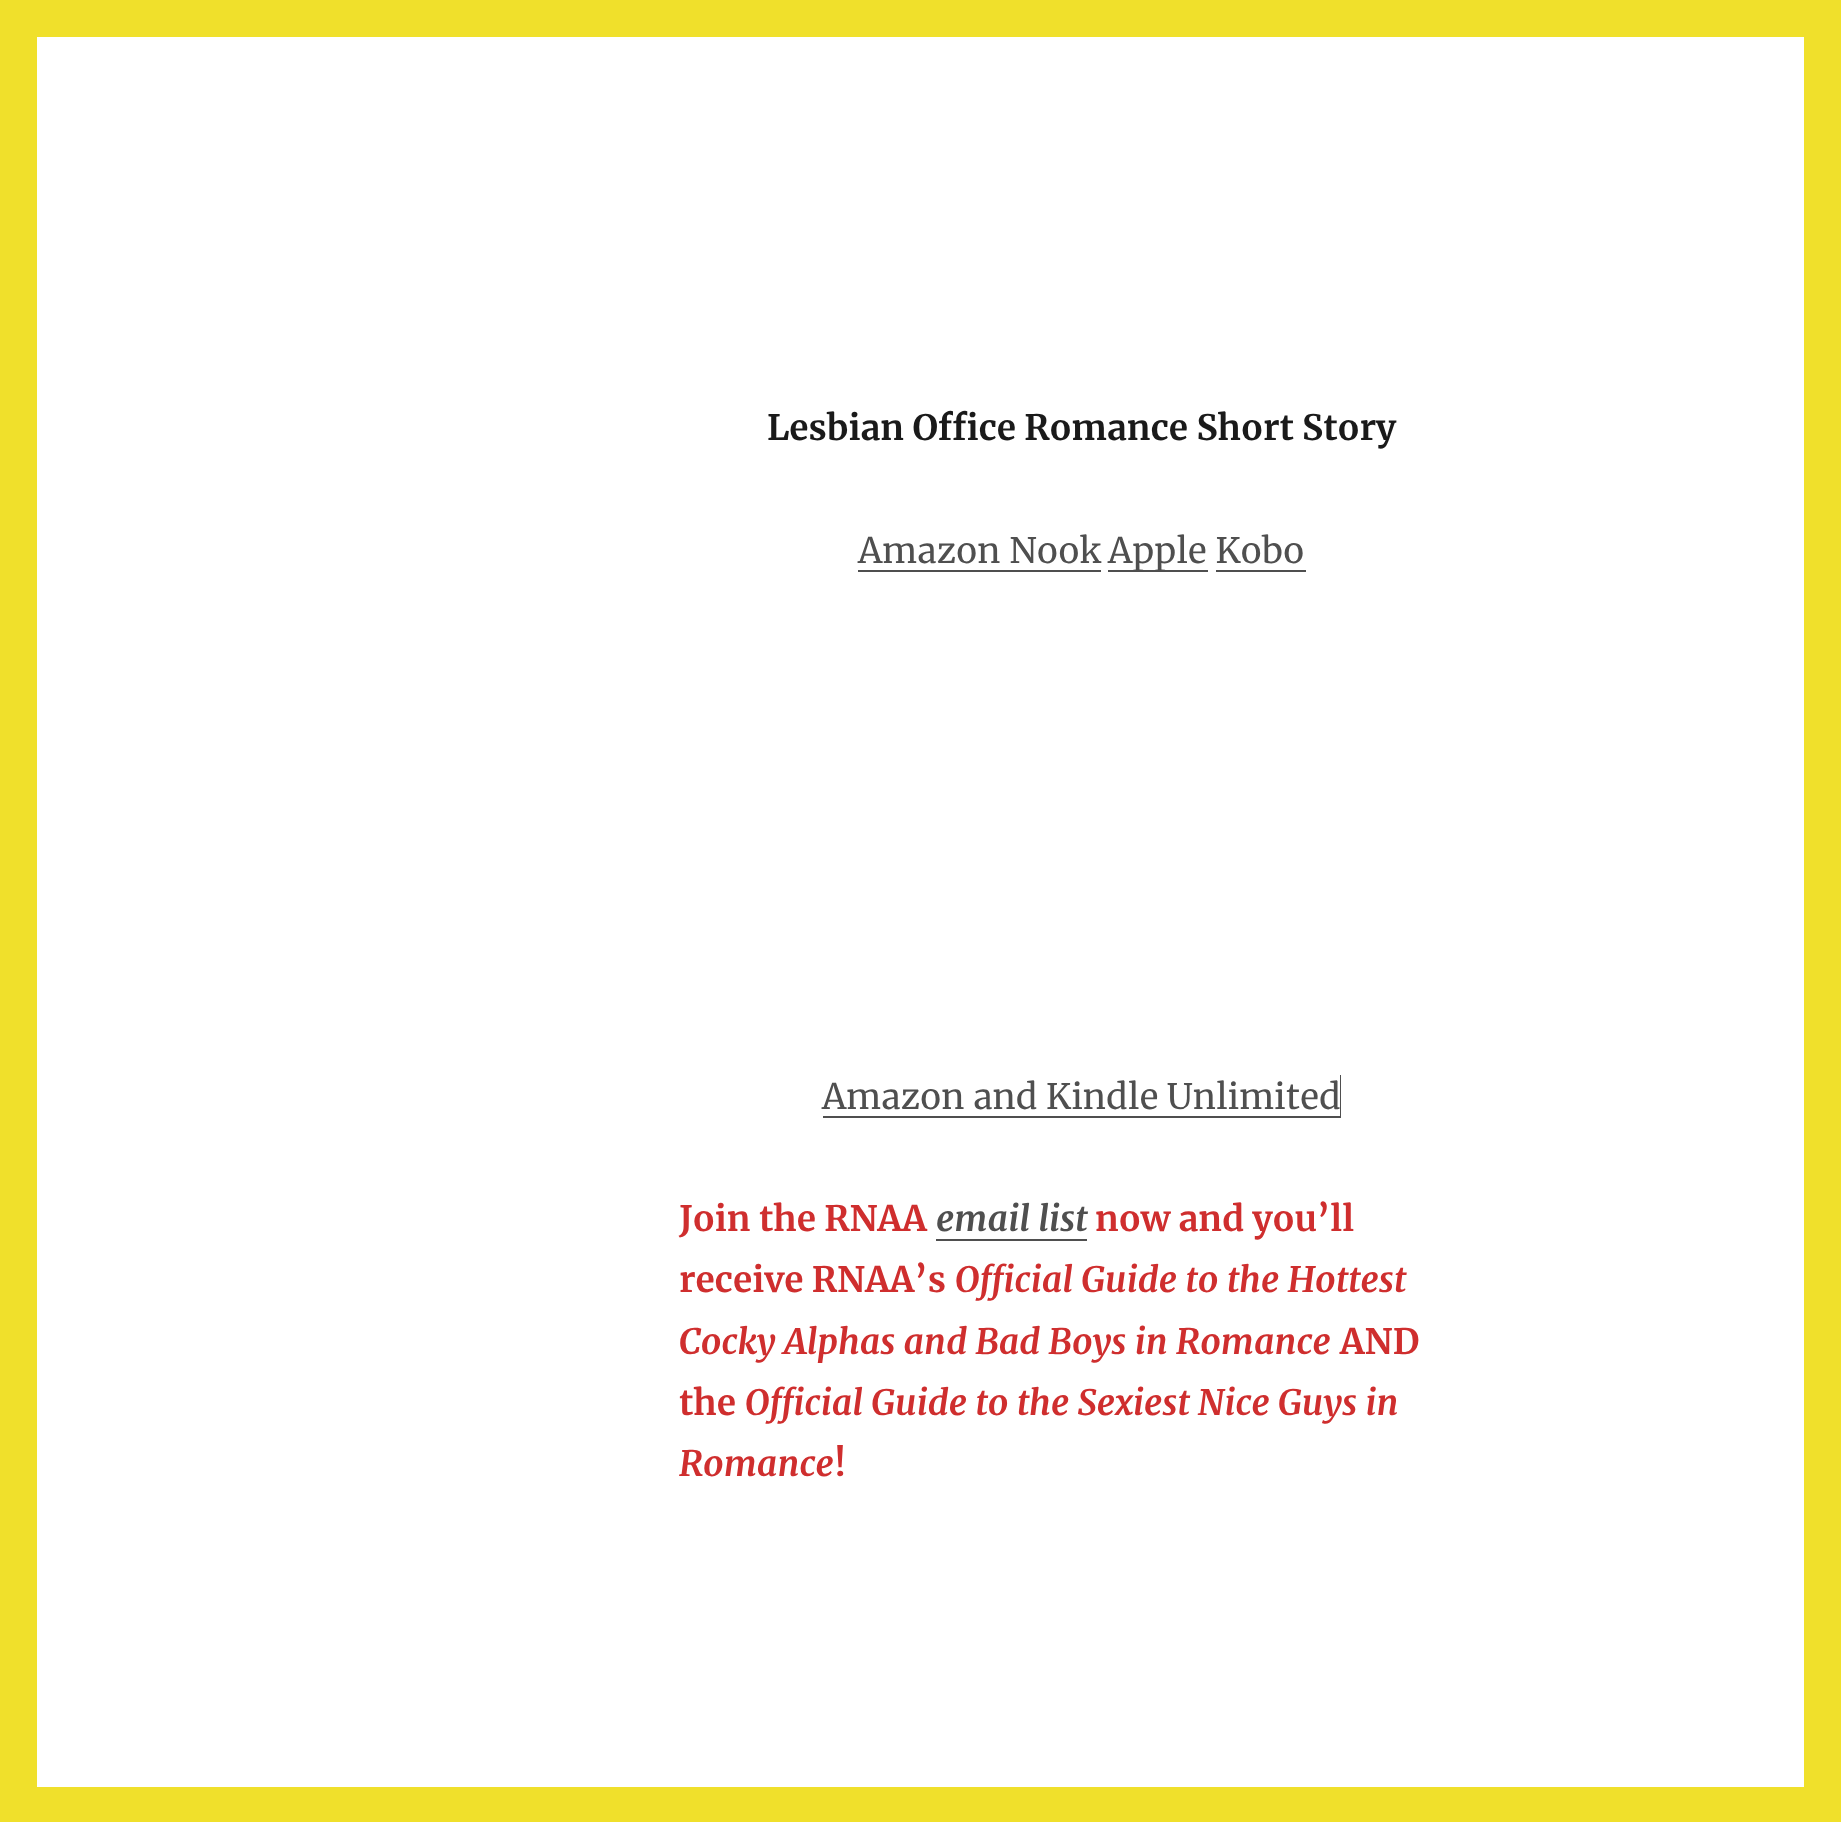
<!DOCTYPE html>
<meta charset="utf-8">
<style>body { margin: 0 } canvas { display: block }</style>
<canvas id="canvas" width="1841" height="1822"></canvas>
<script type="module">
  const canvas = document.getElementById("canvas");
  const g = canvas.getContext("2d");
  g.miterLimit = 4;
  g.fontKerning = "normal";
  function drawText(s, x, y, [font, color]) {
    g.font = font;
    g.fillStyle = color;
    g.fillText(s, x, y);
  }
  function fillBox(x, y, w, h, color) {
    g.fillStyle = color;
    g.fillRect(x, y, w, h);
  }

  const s1 = ["bold 35px Merriweather", "#1A1A1A"];
  const s2 = ["35px Merriweather", "#4F4F4F"];
  const s3 = ["bold 35px Merriweather", "#CF2E2E"];
  const s4 = ["italic bold 35px Merriweather", "#4F4F4F"];
  const s5 = ["italic bold 35px Merriweather", "#CF2E2E"];

  fillBox(0, 0, 1841, 1822, "#F0E02B");
  fillBox(37, 37, 1767, 1750, "#FFFFFF");
  drawText("Lesbian Office Romance Short Story", 767, 440, s1);
  drawText("Amazon Nook", 858, 563, s2);
  fillBox(858, 570, 150, 2, "#4F4F4F");
  g.beginPath();
  g.moveTo(1108, 570);
  g.lineTo(1108, 572);
  g.lineTo(1208, 572);
  g.lineTo(1208, 529);
  g.lineTo(1208, 570);
  g.closePath();
  g.fill();
  drawText("Apple Kobo", 1108, 563, s2);
  g.beginPath();
  g.moveTo(1008, 570);
  g.lineTo(1008, 572);
  g.lineTo(1101, 572);
  g.lineTo(1101, 529);
  g.lineTo(1101, 570);
  g.closePath();
  g.fill();
  g.beginPath();
  g.moveTo(1216, 529);
  g.lineTo(1216, 572);
  g.lineTo(1306, 572);
  g.lineTo(1306, 529);
  g.lineTo(1306, 570);
  g.lineTo(1216, 570);
  g.closePath();
  g.fill();
  g.beginPath();
  g.moveTo(823, 1116);
  g.lineTo(823, 1118);
  g.lineTo(1341, 1118);
  g.lineTo(1341, 1075);
  g.lineTo(1340, 1075);
  g.lineTo(1340, 1116);
  g.closePath();
  g.fill();
  drawText("Amazon and Kindle Unlimited", 822, 1109, s2);
  drawText("Join the RNAA", 679, 1231, s3);
  drawText("email list", 936, 1231, s4);
  g.beginPath();
  g.moveTo(936, 1197);
  g.lineTo(936, 1241);
  g.lineTo(1087, 1241);
  g.lineTo(1087, 1197);
  g.lineTo(1087, 1239);
  g.lineTo(936, 1239);
  g.closePath();
  g.fill();
  drawText("now and you’ll", 1095, 1231, s3);
  drawText("receive RNAA’s", 679, 1292, s3);
  drawText("Official Guide to the Hottest", 955, 1292, s5);
  drawText("Cocky Alphas and Bad Boys in Romance", 679, 1354, s5);
  drawText("AND", 1340, 1354, s3);
  drawText("the", 679, 1415, s3);
  drawText("Official Guide to the Sexiest Nice Guys in", 745, 1415, s5);
  drawText("Romance", 679, 1476, s5);
  drawText("!", 834, 1476, s3);
</script>
